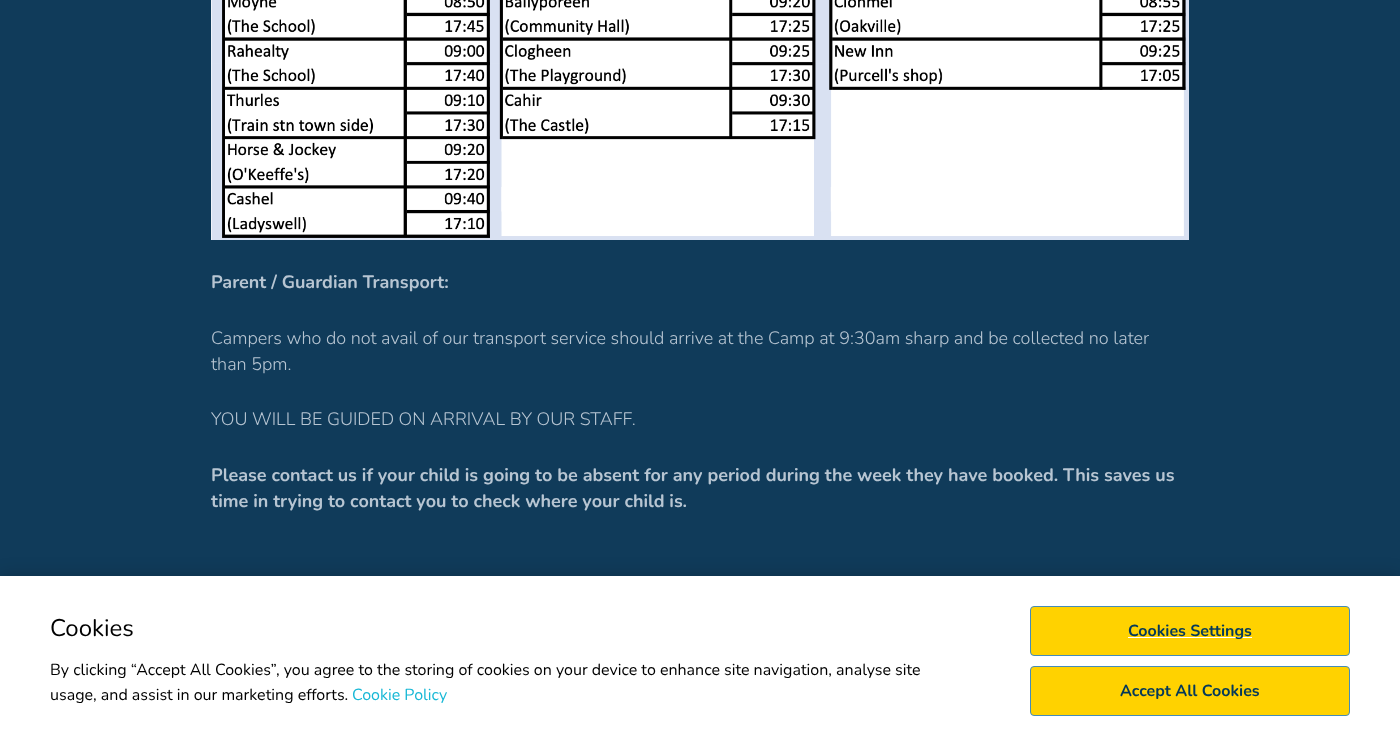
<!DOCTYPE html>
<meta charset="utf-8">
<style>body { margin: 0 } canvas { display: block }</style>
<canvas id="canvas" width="1400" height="746"></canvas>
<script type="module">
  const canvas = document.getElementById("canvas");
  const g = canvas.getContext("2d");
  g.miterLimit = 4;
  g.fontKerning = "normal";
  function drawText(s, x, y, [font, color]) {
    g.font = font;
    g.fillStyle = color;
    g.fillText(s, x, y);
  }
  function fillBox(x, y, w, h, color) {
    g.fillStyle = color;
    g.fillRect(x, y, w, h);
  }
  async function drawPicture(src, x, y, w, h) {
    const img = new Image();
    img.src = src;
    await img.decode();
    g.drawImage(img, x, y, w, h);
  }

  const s1 = ["bold 18px Nunito", "#B7C5D2"];
  const s2 = ["300 18px Nunito", "#B7C5D2"];
  const s3 = ["24px Nunito", "#000000"];
  const s4 = ["16px Nunito", "#000000"];
  const s5 = ["16px Nunito", "#18B8D6"];
  const s6 = ["bold 16px Nunito", "#04395A"];

  fillBox(0, 0, 1400, 746, "#103B5A");
  await drawPicture("pic1.png", 211, 0, 978, 240);
  drawText("Parent / Guardian Transport:", 211, 288, s1);
  drawText("Campers who do not avail of our transport service should arrive at the Camp at 9:30am sharp and be collected no later", 211, 344, s2);
  drawText("than 5pm.", 211, 370, s2);
  drawText("YOU WILL BE GUIDED ON ARRIVAL BY OUR STAFF.", 211, 425, s2);
  drawText("Please contact us if your child is going to be absent for any period during the week they have booked. This saves us", 211, 481, s1);
  drawText("time in trying to contact you to check where your child is.", 211, 507, s1);
  g.fillStyle = "rgba(0, 0, 0, 0.2)";
  g.filter = "blur(9px)";
  g.beginPath();
  g.rect(0, 576, 1400, 170);
  g.fill();
  g.filter = "none";
  fillBox(0, 576, 1400, 170, "#FFFFFF");
  drawText("Cookies", 50, 636, s3);
  drawText("By clicking “Accept All Cookies”, you agree to the storing of cookies on your device to enhance site navigation, analyse site", 50, 675, s4);
  drawText("usage, and assist in our marketing efforts.", 50, 700, s4);
  drawText("Cookie Policy", 352, 700, s5);
  g.fillStyle = "#FFD200";
  g.beginPath();
  g.roundRect(1030.5, 606.5, 319, 49, 3.5);
  g.fill();
  g.strokeStyle = "#458CB9";
  g.stroke();
  fillBox(1128, 637, 124, 1, "#FFFFFF");
  drawText("Cookies Settings", 1128, 636, s6);
  g.fillStyle = "#FFD200";
  g.beginPath();
  g.roundRect(1030.5, 666.5, 319, 49, 3.5);
  g.fill();
  g.stroke();
  drawText("Accept All Cookies", 1120, 696, s6);
</script>
